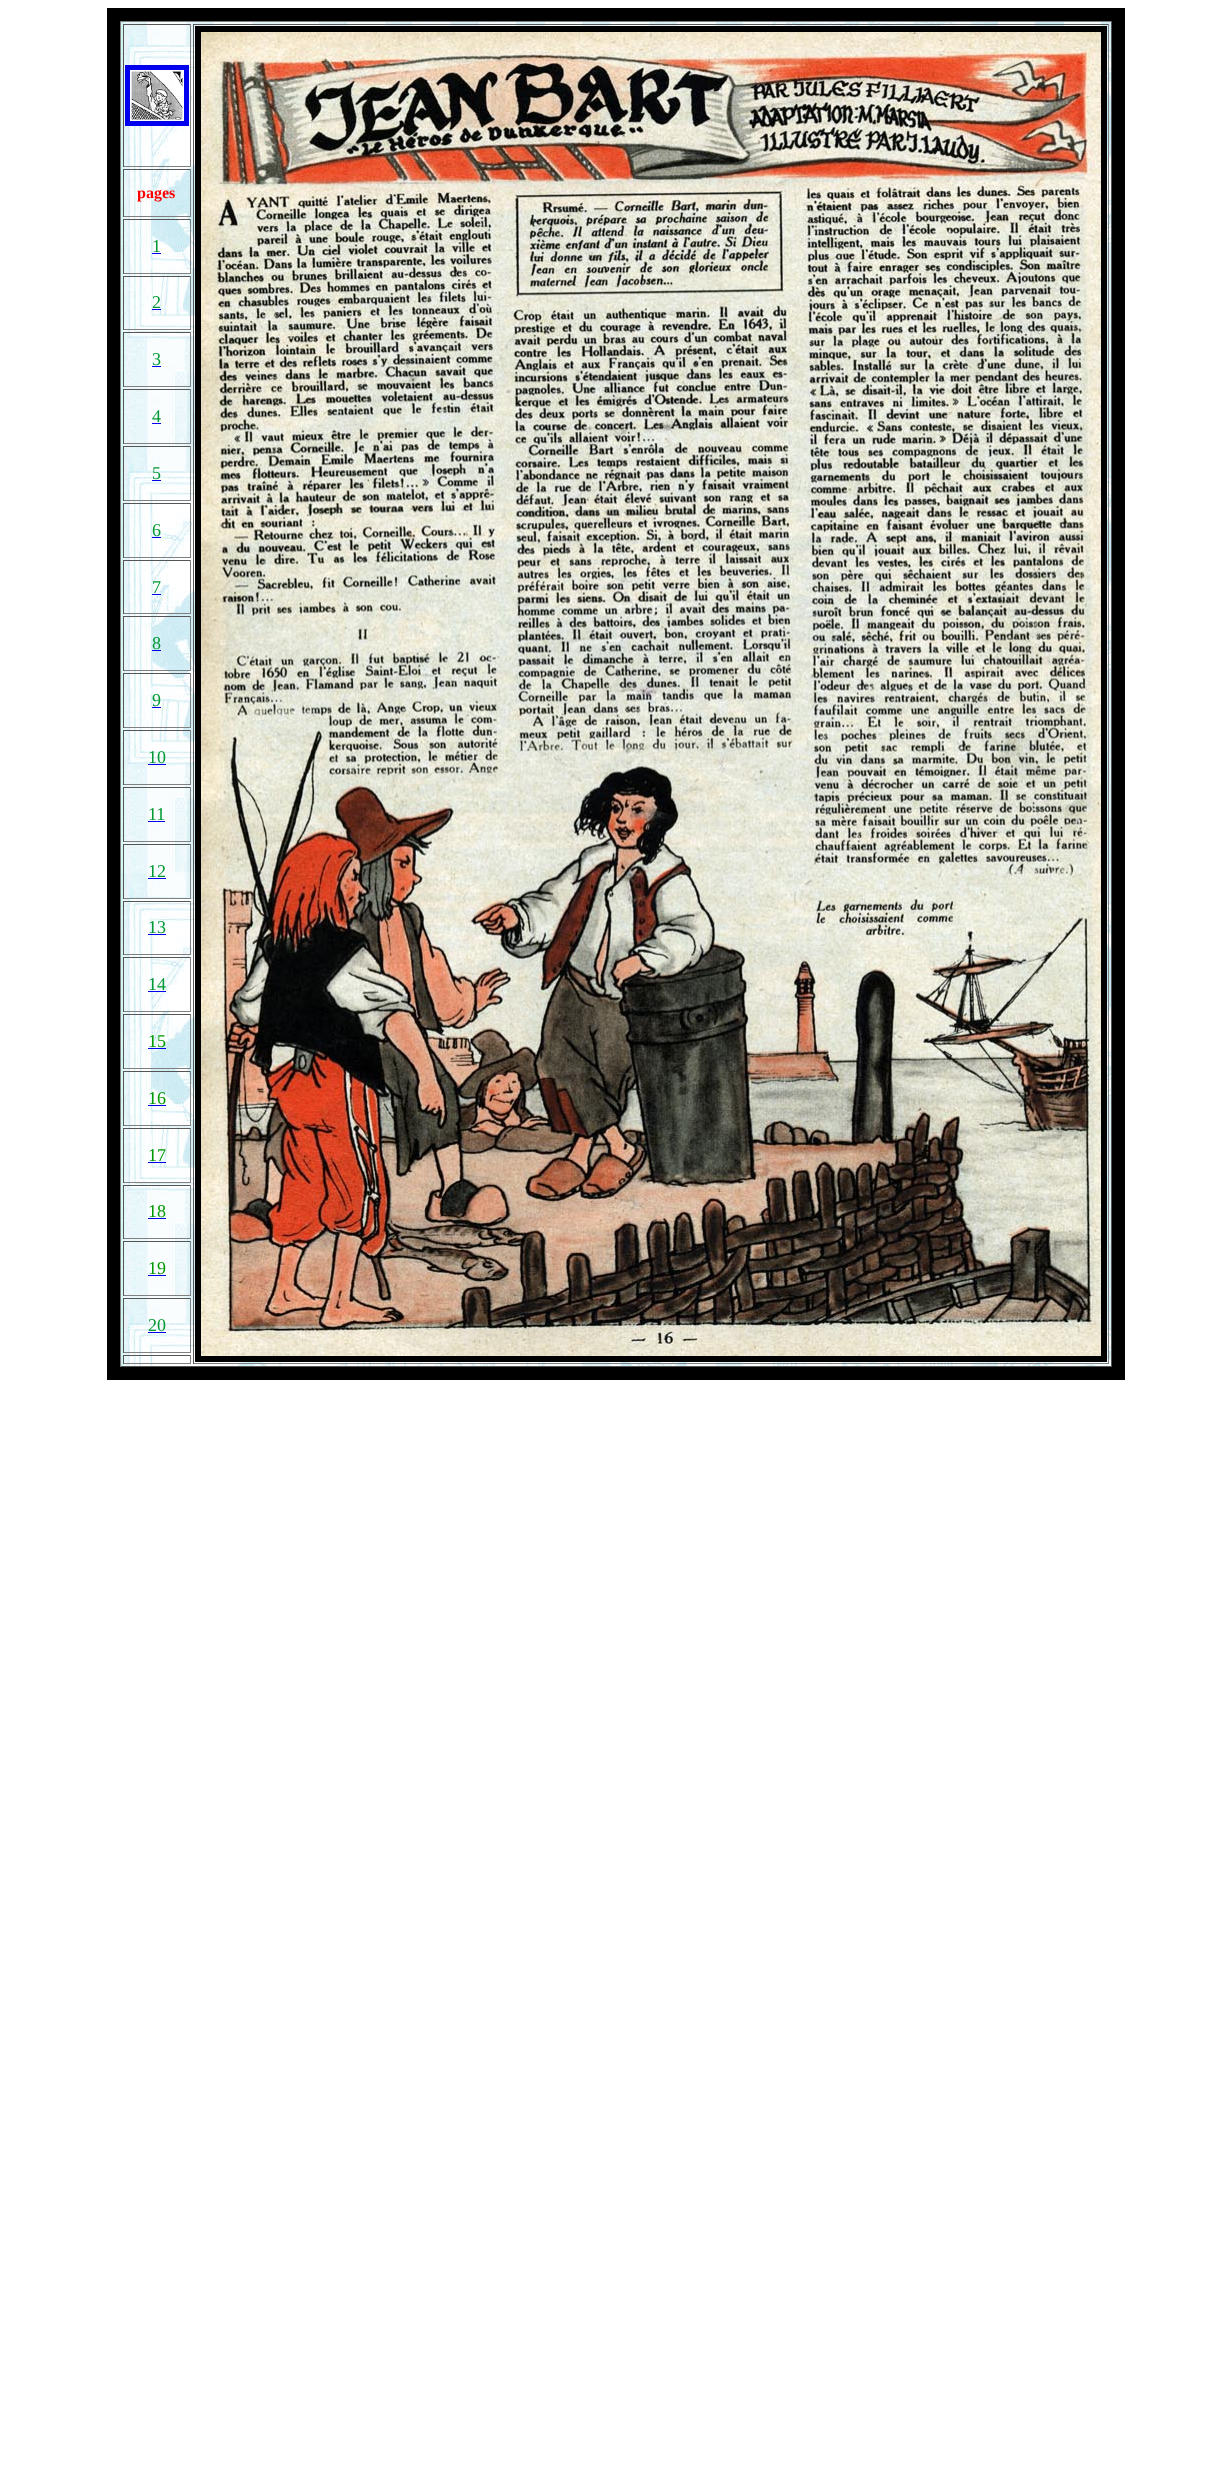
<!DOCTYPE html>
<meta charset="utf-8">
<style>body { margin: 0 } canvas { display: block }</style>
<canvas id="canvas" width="1231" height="2492"></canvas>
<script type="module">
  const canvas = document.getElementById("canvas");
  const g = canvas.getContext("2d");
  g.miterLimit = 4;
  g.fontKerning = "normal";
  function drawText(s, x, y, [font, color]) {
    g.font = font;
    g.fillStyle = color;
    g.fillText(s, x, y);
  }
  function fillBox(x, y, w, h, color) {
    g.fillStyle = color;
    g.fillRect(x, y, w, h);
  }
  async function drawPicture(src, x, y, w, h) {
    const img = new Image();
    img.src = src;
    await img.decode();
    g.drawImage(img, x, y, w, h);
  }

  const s1 = ["bold 16px Liberation Serif", "#FF0000"];
  const s2 = ["18px Liberation Serif", "#009933"];
  const s3 = ["18px Liberation Serif", "#009900"];

  fillBox(0, 0, 1231, 2492, "#FFFFFF");
  g.strokeStyle = "#000000";
  g.lineWidth = 12;
  g.strokeRect(113, 14, 1006, 1360);
  await drawPicture("pic1.png", 121, 22, 990, 1344);
  g.lineWidth = 1;
  g.strokeRect(119.5, 20.5, 993, 1347);
  fillBox(120, 21, 992, 1, "#808080");
  fillBox(1111, 21, 1, 1346, "#555555");
  fillBox(120, 1366, 992, 1, "#555555");
  fillBox(120, 21, 1, 1346, "#808080");
  fillBox(123, 24, 68, 1, "#555555");
  fillBox(190, 24, 1, 143, "#808080");
  fillBox(123, 166, 68, 1, "#808080");
  fillBox(123, 24, 1, 143, "#555555");
  g.strokeStyle = "#0000EE";
  g.lineWidth = 5;
  g.strokeRect(127.5, 67.5, 59, 56);
  await drawPicture("pic2.png", 130, 70, 54, 51);
  fillBox(193, 24, 916, 1, "#555555");
  fillBox(1108, 24, 1, 1340, "#808080");
  fillBox(193, 1363, 916, 1, "#808080");
  fillBox(193, 24, 1, 1340, "#555555");
  g.strokeStyle = "#000000";
  g.lineWidth = 6;
  g.strokeRect(198, 29, 906, 1330);
  await drawPicture("pic3.png", 201, 32, 900, 1324);
  fillBox(123, 169, 68, 1, "#555555");
  fillBox(190, 169, 1, 48, "#808080");
  fillBox(123, 216, 68, 1, "#808080");
  fillBox(123, 169, 1, 48, "#555555");
  drawText("pages", 137, 198, s1);
  fillBox(123, 219, 68, 1, "#555555");
  fillBox(190, 219, 1, 55, "#808080");
  fillBox(123, 273, 68, 1, "#808080");
  fillBox(123, 219, 1, 55, "#555555");
  drawText("1", 152, 252, s2);
  fillBox(152, 253, 9, 1, "#0000EE");
  fillBox(123, 276, 68, 1, "#555555");
  fillBox(190, 276, 1, 54, "#808080");
  fillBox(123, 329, 68, 1, "#808080");
  fillBox(123, 276, 1, 54, "#555555");
  drawText("2", 152, 308, s2);
  fillBox(152, 309, 9, 1, "#0000EE");
  fillBox(123, 332, 68, 1, "#555555");
  fillBox(190, 332, 1, 55, "#808080");
  fillBox(123, 386, 68, 1, "#808080");
  fillBox(123, 332, 1, 55, "#555555");
  drawText("3", 152, 365, s2);
  fillBox(152, 366, 9, 1, "#0000EE");
  fillBox(123, 389, 68, 1, "#555555");
  fillBox(190, 389, 1, 55, "#808080");
  fillBox(123, 443, 68, 1, "#808080");
  fillBox(123, 389, 1, 55, "#555555");
  drawText("4", 152, 422, s2);
  fillBox(152, 423, 9, 1, "#0000EE");
  fillBox(123, 446, 68, 1, "#555555");
  fillBox(190, 446, 1, 55, "#808080");
  fillBox(123, 500, 68, 1, "#808080");
  fillBox(123, 446, 1, 55, "#555555");
  drawText("5", 152, 479, s2);
  fillBox(152, 480, 9, 1, "#0000EE");
  fillBox(123, 503, 68, 1, "#555555");
  fillBox(190, 503, 1, 55, "#808080");
  fillBox(123, 557, 68, 1, "#808080");
  fillBox(123, 503, 1, 55, "#555555");
  drawText("6", 152, 536, s2);
  fillBox(152, 537, 9, 1, "#0000EE");
  fillBox(123, 560, 68, 1, "#555555");
  fillBox(190, 560, 1, 54, "#808080");
  fillBox(123, 613, 68, 1, "#808080");
  fillBox(123, 560, 1, 54, "#555555");
  drawText("7", 152, 593, s2);
  fillBox(152, 594, 9, 1, "#0000EE");
  fillBox(123, 616, 68, 1, "#555555");
  fillBox(190, 616, 1, 55, "#808080");
  fillBox(123, 670, 68, 1, "#808080");
  fillBox(123, 616, 1, 55, "#555555");
  drawText("8", 152, 649, s2);
  fillBox(152, 650, 9, 1, "#0000EE");
  fillBox(123, 673, 68, 1, "#555555");
  fillBox(190, 673, 1, 55, "#808080");
  fillBox(123, 727, 68, 1, "#808080");
  fillBox(123, 673, 1, 55, "#555555");
  drawText("9", 152, 706, s2);
  fillBox(152, 707, 9, 1, "#0000EE");
  fillBox(123, 730, 68, 1, "#555555");
  fillBox(190, 730, 1, 55, "#808080");
  fillBox(123, 784, 68, 1, "#808080");
  fillBox(123, 730, 1, 55, "#555555");
  drawText("10", 148, 763, s2);
  fillBox(148, 764, 18, 1, "#0000EE");
  fillBox(123, 787, 68, 1, "#555555");
  fillBox(190, 787, 1, 55, "#808080");
  fillBox(123, 841, 68, 1, "#808080");
  fillBox(123, 787, 1, 55, "#555555");
  drawText("11", 148, 820, s2);
  fillBox(148, 821, 17, 1, "#0000EE");
  fillBox(123, 844, 68, 1, "#555555");
  fillBox(190, 844, 1, 55, "#808080");
  fillBox(123, 898, 68, 1, "#808080");
  fillBox(123, 844, 1, 55, "#555555");
  drawText("12", 148, 877, s2);
  fillBox(148, 878, 18, 1, "#0000EE");
  fillBox(123, 901, 68, 1, "#555555");
  fillBox(190, 901, 1, 54, "#808080");
  fillBox(123, 954, 68, 1, "#808080");
  fillBox(123, 901, 1, 54, "#555555");
  drawText("13", 148, 933, s2);
  fillBox(148, 934, 18, 1, "#0000EE");
  fillBox(123, 957, 68, 1, "#555555");
  fillBox(190, 957, 1, 55, "#808080");
  fillBox(123, 1011, 68, 1, "#808080");
  fillBox(123, 957, 1, 55, "#555555");
  drawText("14", 148, 990, s2);
  fillBox(148, 991, 18, 1, "#0000EE");
  fillBox(123, 1014, 68, 1, "#555555");
  fillBox(190, 1014, 1, 55, "#808080");
  fillBox(123, 1068, 68, 1, "#808080");
  fillBox(123, 1014, 1, 55, "#555555");
  drawText("15", 148, 1047, s3);
  fillBox(148, 1048, 18, 1, "#0000EE");
  fillBox(123, 1071, 68, 1, "#555555");
  fillBox(190, 1071, 1, 55, "#808080");
  fillBox(123, 1125, 68, 1, "#808080");
  fillBox(123, 1071, 1, 55, "#555555");
  drawText("16", 148, 1104, s3);
  fillBox(148, 1105, 18, 1, "#0000EE");
  fillBox(123, 1128, 68, 1, "#555555");
  fillBox(190, 1128, 1, 55, "#808080");
  fillBox(123, 1182, 68, 1, "#808080");
  fillBox(123, 1128, 1, 55, "#555555");
  drawText("17", 148, 1161, s3);
  fillBox(148, 1162, 18, 1, "#0000EE");
  fillBox(123, 1185, 68, 1, "#555555");
  fillBox(190, 1185, 1, 54, "#808080");
  fillBox(123, 1238, 68, 1, "#808080");
  fillBox(123, 1185, 1, 54, "#555555");
  drawText("18", 148, 1217, s3);
  fillBox(148, 1218, 18, 1, "#0000EE");
  fillBox(123, 1241, 68, 1, "#555555");
  fillBox(190, 1241, 1, 55, "#808080");
  fillBox(123, 1295, 68, 1, "#808080");
  fillBox(123, 1241, 1, 55, "#555555");
  drawText("19", 148, 1274, s3);
  fillBox(148, 1275, 18, 1, "#0000EE");
  fillBox(123, 1298, 68, 1, "#555555");
  fillBox(190, 1298, 1, 55, "#808080");
  fillBox(123, 1352, 68, 1, "#808080");
  fillBox(123, 1298, 1, 55, "#555555");
  drawText("20", 148, 1331, s2);
  fillBox(148, 1332, 18, 1, "#0000EE");
  fillBox(123, 1355, 68, 1, "#555555");
  fillBox(190, 1355, 1, 9, "#808080");
  fillBox(123, 1363, 68, 1, "#808080");
  fillBox(123, 1355, 1, 9, "#555555");
</script>
